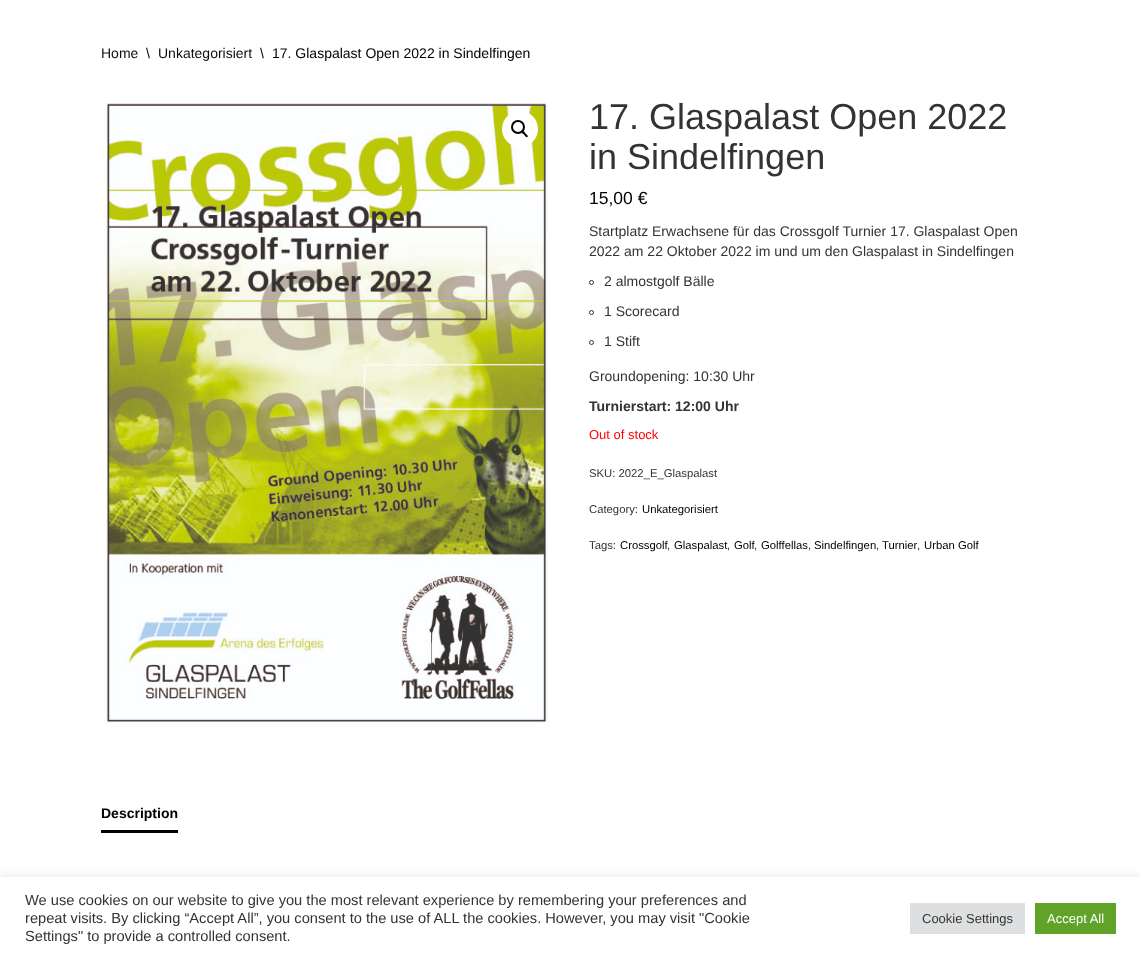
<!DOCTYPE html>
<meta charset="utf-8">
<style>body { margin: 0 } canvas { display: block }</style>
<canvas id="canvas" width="1141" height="959"></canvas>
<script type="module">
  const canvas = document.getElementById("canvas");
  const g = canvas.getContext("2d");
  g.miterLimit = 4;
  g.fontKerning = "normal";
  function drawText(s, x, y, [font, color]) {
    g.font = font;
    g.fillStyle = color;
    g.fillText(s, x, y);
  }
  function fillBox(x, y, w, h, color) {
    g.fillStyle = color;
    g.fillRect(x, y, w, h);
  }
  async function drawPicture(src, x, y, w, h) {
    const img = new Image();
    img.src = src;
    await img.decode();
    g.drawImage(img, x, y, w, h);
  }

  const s1 = ["14px Liberation Sans", "#0F0F0F"];
  const s2 = ["14px Liberation Sans", "#000000"];
  const s3 = ["36px Liberation Sans", "#333333"];
  const s4 = ["17.5px Liberation Sans", "#000000"];
  const s5 = ["14px Liberation Sans", "#333333"];
  const s6 = ["bold 14px Liberation Sans", "#333333"];
  const s7 = ["13px Liberation Sans", "#FF0000"];
  const s8 = ["11.3px Liberation Sans", "#333333"];
  const s9 = ["11.3px Liberation Sans", "#000000"];
  const s10 = ["bold 14px Liberation Sans", "#000000"];
  const s11 = ["14.65px Liberation Sans", "#333333"];
  const s12 = ["13px Liberation Sans", "#333333"];
  const s13 = ["13px Liberation Sans", "#FFFFFF"];

  fillBox(0, 0, 1141, 959, "#FFFFFF");
  drawText("Home", 101, 58, s1);
  drawText("\\", 146, 58, s2);
  drawText("Unkategorisiert", 158, 58, s1);
  drawText("\\", 260, 58, s2);
  drawText("17. Glaspalast Open 2022 in Sindelfingen", 272, 58, s2);
  await drawPicture("pic1.png", 106, 103, 442, 620);
  g.fillStyle = "#FFFFFF";
  g.beginPath();
  g.arc(520, 129, 18, 0, Math.PI * 2);
  g.fill();
  g.beginPath();
  g.arc(518, 127, 6, 0, Math.PI * 2);
  g.strokeStyle = "#000000";
  g.lineWidth = 2;
  g.stroke();
  g.fillStyle = "#000000";
  g.beginPath();
  g.moveTo(522, 131);
  g.bezierCurveTo(523, 130, 525, 132.5, 525.5, 133.5);
  g.bezierCurveTo(526, 134, 528.5, 135.5, 527.5, 137);
  g.bezierCurveTo(526.5, 138, 524.5, 135.5, 524, 134.5);
  g.bezierCurveTo(523.5, 134, 520.5, 132.5, 522, 131);
  g.closePath();
  g.fill();
  drawText("17. Glaspalast Open 2022", 589, 129, s3);
  drawText("in Sindelfingen", 589, 169, s3);
  drawText("15,00 €", 589, 204, s4);
  drawText("Startplatz Erwachsene für das Crossgolf Turnier 17. Glaspalast Open", 589, 236, s5);
  drawText("2022 am 22 Oktober 2022 im und um den Glaspalast in Sindelfingen", 589, 256, s5);
  g.beginPath();
  g.arc(591.5, 282.5, 2, 0, Math.PI * 2);
  g.strokeStyle = "#333333";
  g.lineWidth = 1;
  g.stroke();
  drawText("2 almostgolf Bälle", 604, 286, s5);
  g.beginPath();
  g.arc(591.5, 312.5, 2, 0, Math.PI * 2);
  g.stroke();
  drawText("1 Scorecard", 604, 316, s5);
  g.beginPath();
  g.arc(591.5, 342.5, 2, 0, Math.PI * 2);
  g.stroke();
  drawText("1 Stift", 604, 346, s5);
  drawText("Groundopening: 10:30 Uhr", 589, 381, s5);
  drawText("Turnierstart: 12:00 Uhr", 589, 411, s6);
  drawText("Out of stock", 589, 439, s7);
  drawText("SKU: 2022_E_Glaspalast", 589, 477, s8);
  drawText("Category:", 589, 513, s8);
  drawText("Unkategorisiert", 642, 513, s9);
  drawText("Tags:", 589, 549, s8);
  drawText("Crossgolf", 620, 549, s9);
  drawText(",", 667, 549, s8);
  drawText("Glaspalast", 674, 549, s9);
  drawText(",", 727, 549, s8);
  drawText("Golf", 734, 549, s9);
  drawText(",", 754, 549, s8);
  drawText("Golffellas", 761, 549, s9);
  drawText(",", 808, 549, s8);
  drawText("Sindelfingen", 814, 549, s9);
  drawText(",", 876, 549, s8);
  drawText("Turnier", 882, 549, s9);
  drawText(",", 917, 549, s8);
  drawText("Urban Golf", 924, 549, s9);
  fillBox(101, 830, 77, 3, "#030303");
  drawText("Description", 101, 818, s10);
  g.fillStyle = "rgba(172, 171, 171, 0.3)";
  g.filter = "blur(5px)";
  g.beginPath();
  g.rect(0, 876, 1141, 82);
  g.fill();
  g.filter = "none";
  fillBox(0, 877, 1141, 82, "#FFFFFF");
  drawText("We use cookies on our website to give you the most relevant experience by remembering your preferences and", 25, 905, s11);
  drawText("repeat visits. By clicking “Accept All”, you consent to the use of ALL the cookies. However, you may visit \"Cookie", 25, 923, s11);
  drawText("Settings\" to provide a controlled consent.", 25, 941, s11);
  fillBox(910, 903, 115, 31, "#DEDFE0");
  drawText("Cookie Settings", 922, 923, s12);
  fillBox(1035, 903, 81, 31, "#61A229");
  drawText("Accept All", 1047, 923, s13);
</script>
